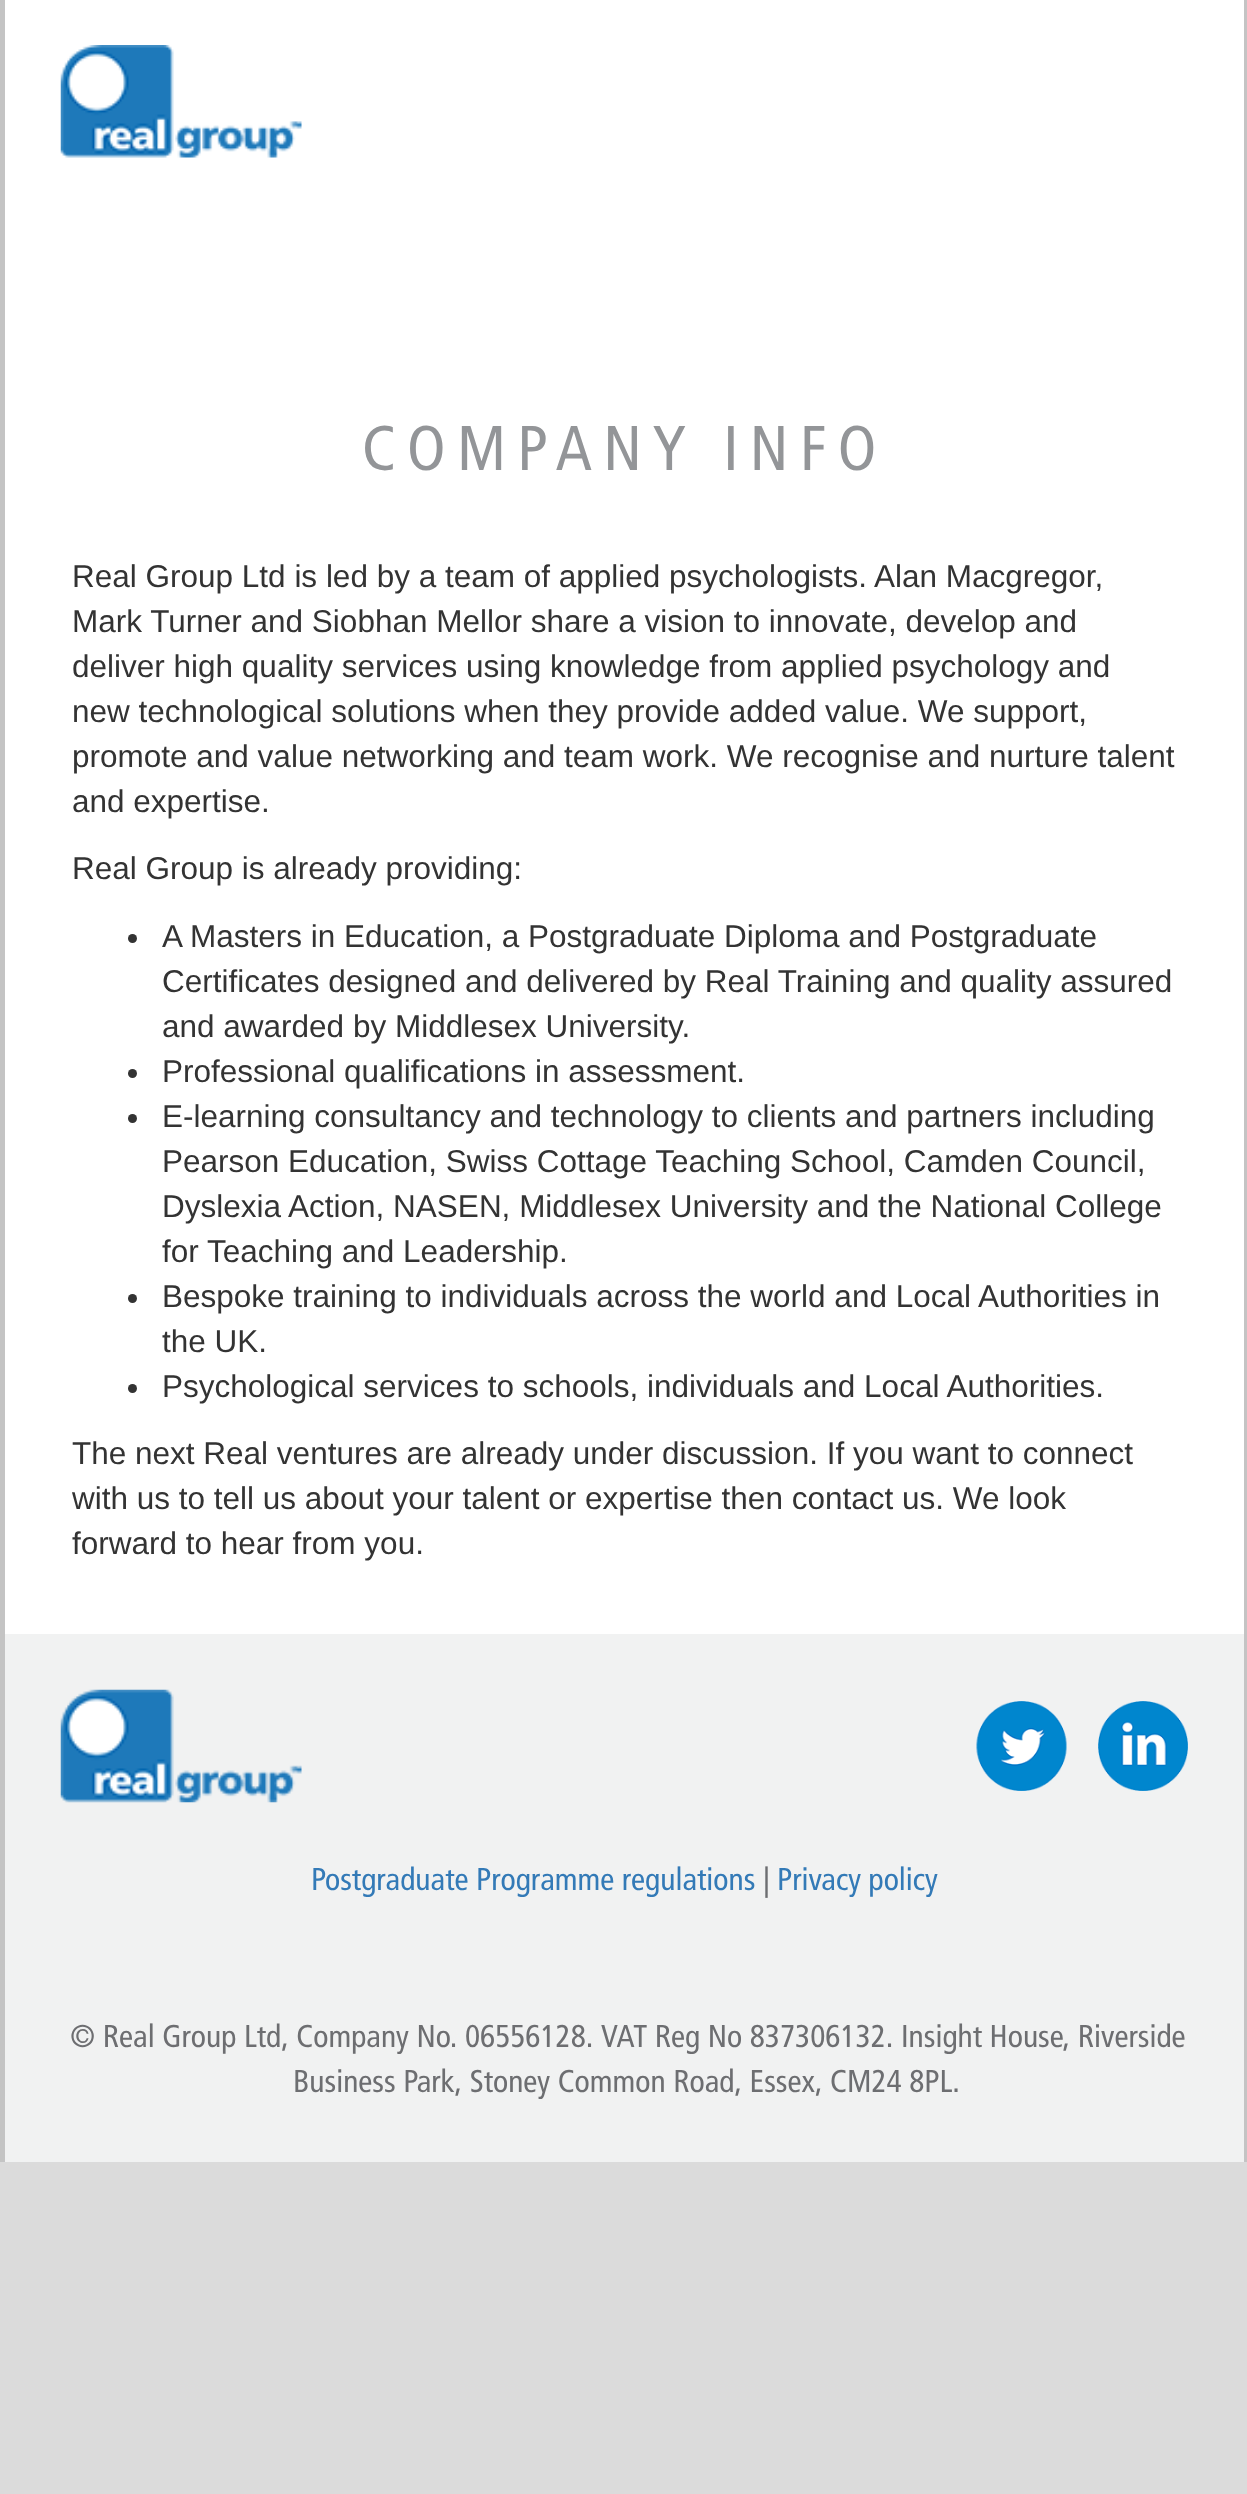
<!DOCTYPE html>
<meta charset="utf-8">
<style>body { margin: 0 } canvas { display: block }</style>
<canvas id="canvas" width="1247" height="2494"></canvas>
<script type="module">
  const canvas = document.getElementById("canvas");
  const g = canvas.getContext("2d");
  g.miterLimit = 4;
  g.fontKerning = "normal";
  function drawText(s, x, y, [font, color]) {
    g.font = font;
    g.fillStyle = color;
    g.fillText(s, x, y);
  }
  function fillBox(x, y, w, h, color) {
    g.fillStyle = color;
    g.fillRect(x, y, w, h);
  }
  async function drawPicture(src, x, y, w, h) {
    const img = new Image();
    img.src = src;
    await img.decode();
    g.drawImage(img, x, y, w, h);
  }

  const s1 = ["63px 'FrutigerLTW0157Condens'", "#939598"];
  const s2 = ["31.5px Liberation Sans", "#333333"];
  const s3 = ["31.5px 'FrutigerLTW0157Condens'", "#337AB7"];
  const s4 = ["31.5px 'FrutigerLTW0157Condens'", "#6D6E71"];

  fillBox(0, 0, 1247, 2494, "#DBDBDB");
  fillBox(5, 0, 1239, 1634, "#FFFFFF");
  fillBox(1244, 0, 3, 2162, "#C4C4C4");
  fillBox(0, 0, 5, 2162, "#C4C4C4");
  await drawPicture("pic1.png", 60, 45, 242, 113);
  g.letterSpacing = "11.25px";
  drawText("COMPANY INFO", 362, 470, s1);
  g.letterSpacing = "0px";
  drawText("Real Group Ltd is led by a team of applied psychologists. Alan Macgregor,", 72, 587, s2);
  drawText("Mark Turner and Siobhan Mellor share a vision to innovate, develop and", 72, 632, s2);
  drawText("deliver high quality services using knowledge from applied psychology and", 72, 677, s2);
  drawText("new technological solutions when they provide added value. We support,", 72, 722, s2);
  drawText("promote and value networking and team work. We recognise and nurture talent", 72, 767, s2);
  drawText("and expertise.", 72, 812, s2);
  drawText("Real Group is already providing:", 72, 879, s2);
  g.beginPath();
  g.arc(132.5, 938.5, 4.5, 0, Math.PI * 2);
  g.fill();
  drawText("A Masters in Education, a Postgraduate Diploma and Postgraduate", 162, 947, s2);
  drawText("Certificates designed and delivered by Real Training and quality assured", 162, 992, s2);
  drawText("and awarded by Middlesex University.", 162, 1037, s2);
  g.beginPath();
  g.arc(132.5, 1073.5, 4.5, 0, Math.PI * 2);
  g.fill();
  drawText("Professional qualifications in assessment.", 162, 1082, s2);
  g.beginPath();
  g.arc(132.5, 1118.5, 4.5, 0, Math.PI * 2);
  g.fill();
  drawText("E-learning consultancy and technology to clients and partners including", 162, 1127, s2);
  drawText("Pearson Education, Swiss Cottage Teaching School, Camden Council,", 162, 1172, s2);
  drawText("Dyslexia Action, NASEN, Middlesex University and the National College", 162, 1217, s2);
  drawText("for Teaching and Leadership.", 162, 1262, s2);
  g.beginPath();
  g.arc(132.5, 1298.5, 4.5, 0, Math.PI * 2);
  g.fill();
  drawText("Bespoke training to individuals across the world and Local Authorities in", 162, 1307, s2);
  drawText("the UK.", 162, 1352, s2);
  g.beginPath();
  g.arc(132.5, 1388.5, 4.5, 0, Math.PI * 2);
  g.fill();
  drawText("Psychological services to schools, individuals and Local Authorities.", 162, 1397, s2);
  drawText("The next Real ventures are already under discussion. If you want to connect", 72, 1464, s2);
  drawText("with us to tell us about your talent or expertise then contact us. We look", 72, 1509, s2);
  drawText("forward to hear from you.", 72, 1554, s2);
  fillBox(5, 1634, 1239, 528, "#F1F2F2");
  await drawPicture("pic2.png", 60, 1689, 242, 114);
  await drawPicture("pic3.png", 976, 1701, 91, 90);
  await drawPicture("pic4.png", 1098, 1701, 90, 90);
  drawText("Postgraduate Programme regulations", 311, 1890, s3);
  drawText("|", 763, 1890, s4);
  drawText("Privacy policy", 777, 1890, s3);
  drawText("© Real Group Ltd, Company No. 06556128. VAT Reg No 837306132. Insight House, Riverside", 70, 2047, s4);
  drawText("Business Park, Stoney Common Road, Essex, CM24 8PL.", 293, 2092, s4);
</script>
